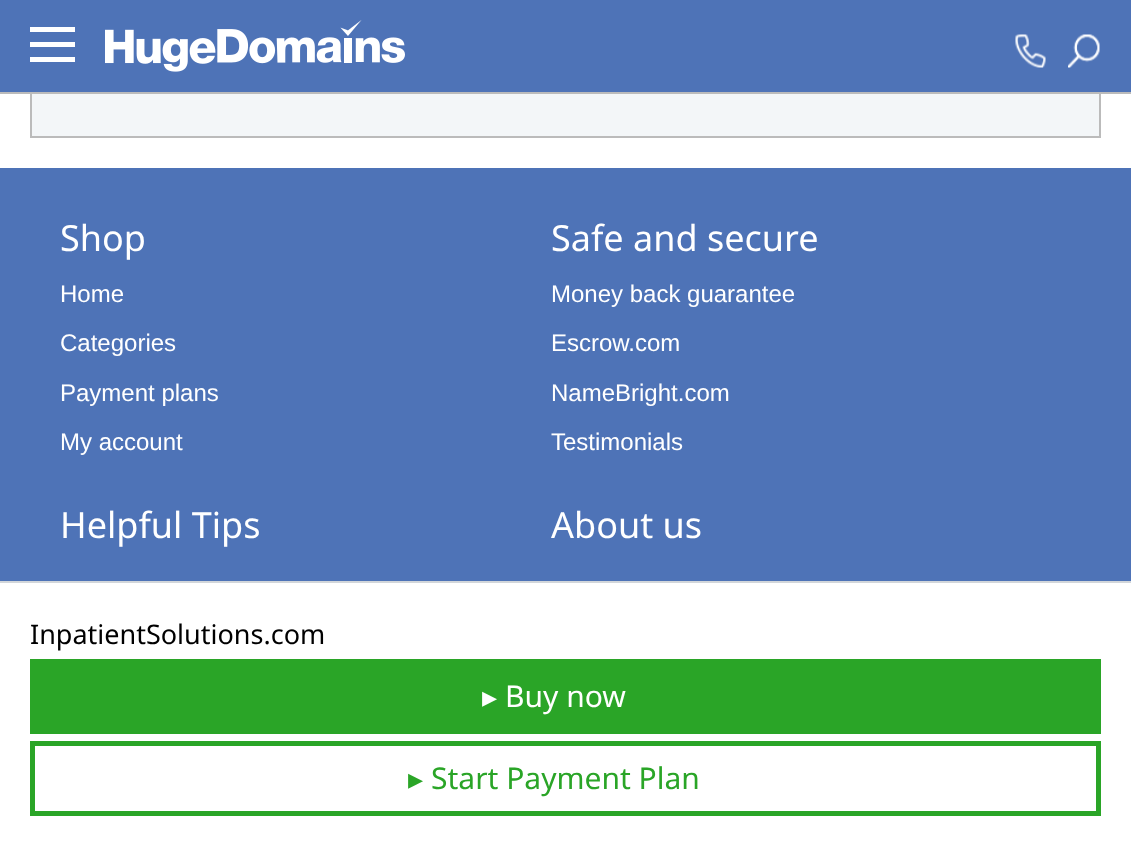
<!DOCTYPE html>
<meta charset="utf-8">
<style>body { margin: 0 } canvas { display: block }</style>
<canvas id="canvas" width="1131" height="845"></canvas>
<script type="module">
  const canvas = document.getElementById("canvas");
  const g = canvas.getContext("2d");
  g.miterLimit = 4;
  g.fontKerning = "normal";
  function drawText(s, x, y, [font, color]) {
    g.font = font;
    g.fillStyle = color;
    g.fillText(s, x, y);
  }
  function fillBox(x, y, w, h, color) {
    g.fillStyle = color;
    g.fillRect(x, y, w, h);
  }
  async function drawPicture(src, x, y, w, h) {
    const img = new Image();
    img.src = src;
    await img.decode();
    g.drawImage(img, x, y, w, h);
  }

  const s1 = ["36px Noto Sans", "#FFFFFF"];
  const s2 = ["24px Liberation Sans", "#FFFFFF"];
  const s3 = ["27px Noto Sans", "#000000"];
  const s4 = ["30px DejaVu Sans", "#FFFFFF"];
  const s5 = ["30px Noto Sans", "#FFFFFF"];
  const s6 = ["30px DejaVu Sans", "#2AA527"];
  const s7 = ["30px Noto Sans", "#2AA527"];

  fillBox(0, 0, 1131, 845, "#FFFFFF");
  fillBox(32, 94, 1067, 42, "#F3F6F8");
  g.strokeStyle = "#BBBBBB";
  g.lineWidth = 2;
  g.strokeRect(31, -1, 1069, 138);
  fillBox(0, 0, 1131, 92, "#4E73B7");
  fillBox(0, 92, 1131, 2, "#BBBBBB");
  fillBox(30, 42, 45, 5, "#FFFFFF");
  fillBox(30, 27, 45, 5, "#FFFFFF");
  fillBox(30, 57, 45, 5, "#FFFFFF");
  await drawPicture("pic1.png", 105, 20, 300, 52);
  await drawPicture("pic2.png", 1015, 34, 31, 34);
  await drawPicture("pic3.png", 1068, 34, 32, 34);
  fillBox(0, 168, 1131, 413, "#4E73B7");
  drawText("Shop", 60, 251, s1);
  drawText("Home", 60, 302, s2);
  drawText("Categories", 60, 351, s2);
  drawText("Payment plans", 60, 401, s2);
  drawText("My account", 60, 450, s2);
  drawText("Safe and secure", 551, 251, s1);
  drawText("Money back guarantee", 551, 302, s2);
  drawText("Escrow.com", 551, 351, s2);
  drawText("NameBright.com", 551, 401, s2);
  drawText("Testimonials", 551, 450, s2);
  drawText("Helpful Tips", 60, 538, s1);
  drawText("About us", 551, 538, s1);
  fillBox(0, 581, 1131, 2, "#D2D6DA");
  drawText("InpatientSolutions.com", 30, 644, s3);
  fillBox(30, 659, 1071, 75, "#2AA527");
  drawText("▸", 482, 707, s4);
  drawText("Buy now", 505, 707, s5);
  g.strokeStyle = "#2AA527";
  g.lineWidth = 5;
  g.strokeRect(32.5, 743.5, 1066, 70);
  drawText("▸", 408, 789, s6);
  drawText("Start Payment Plan", 431, 789, s7);
</script>
